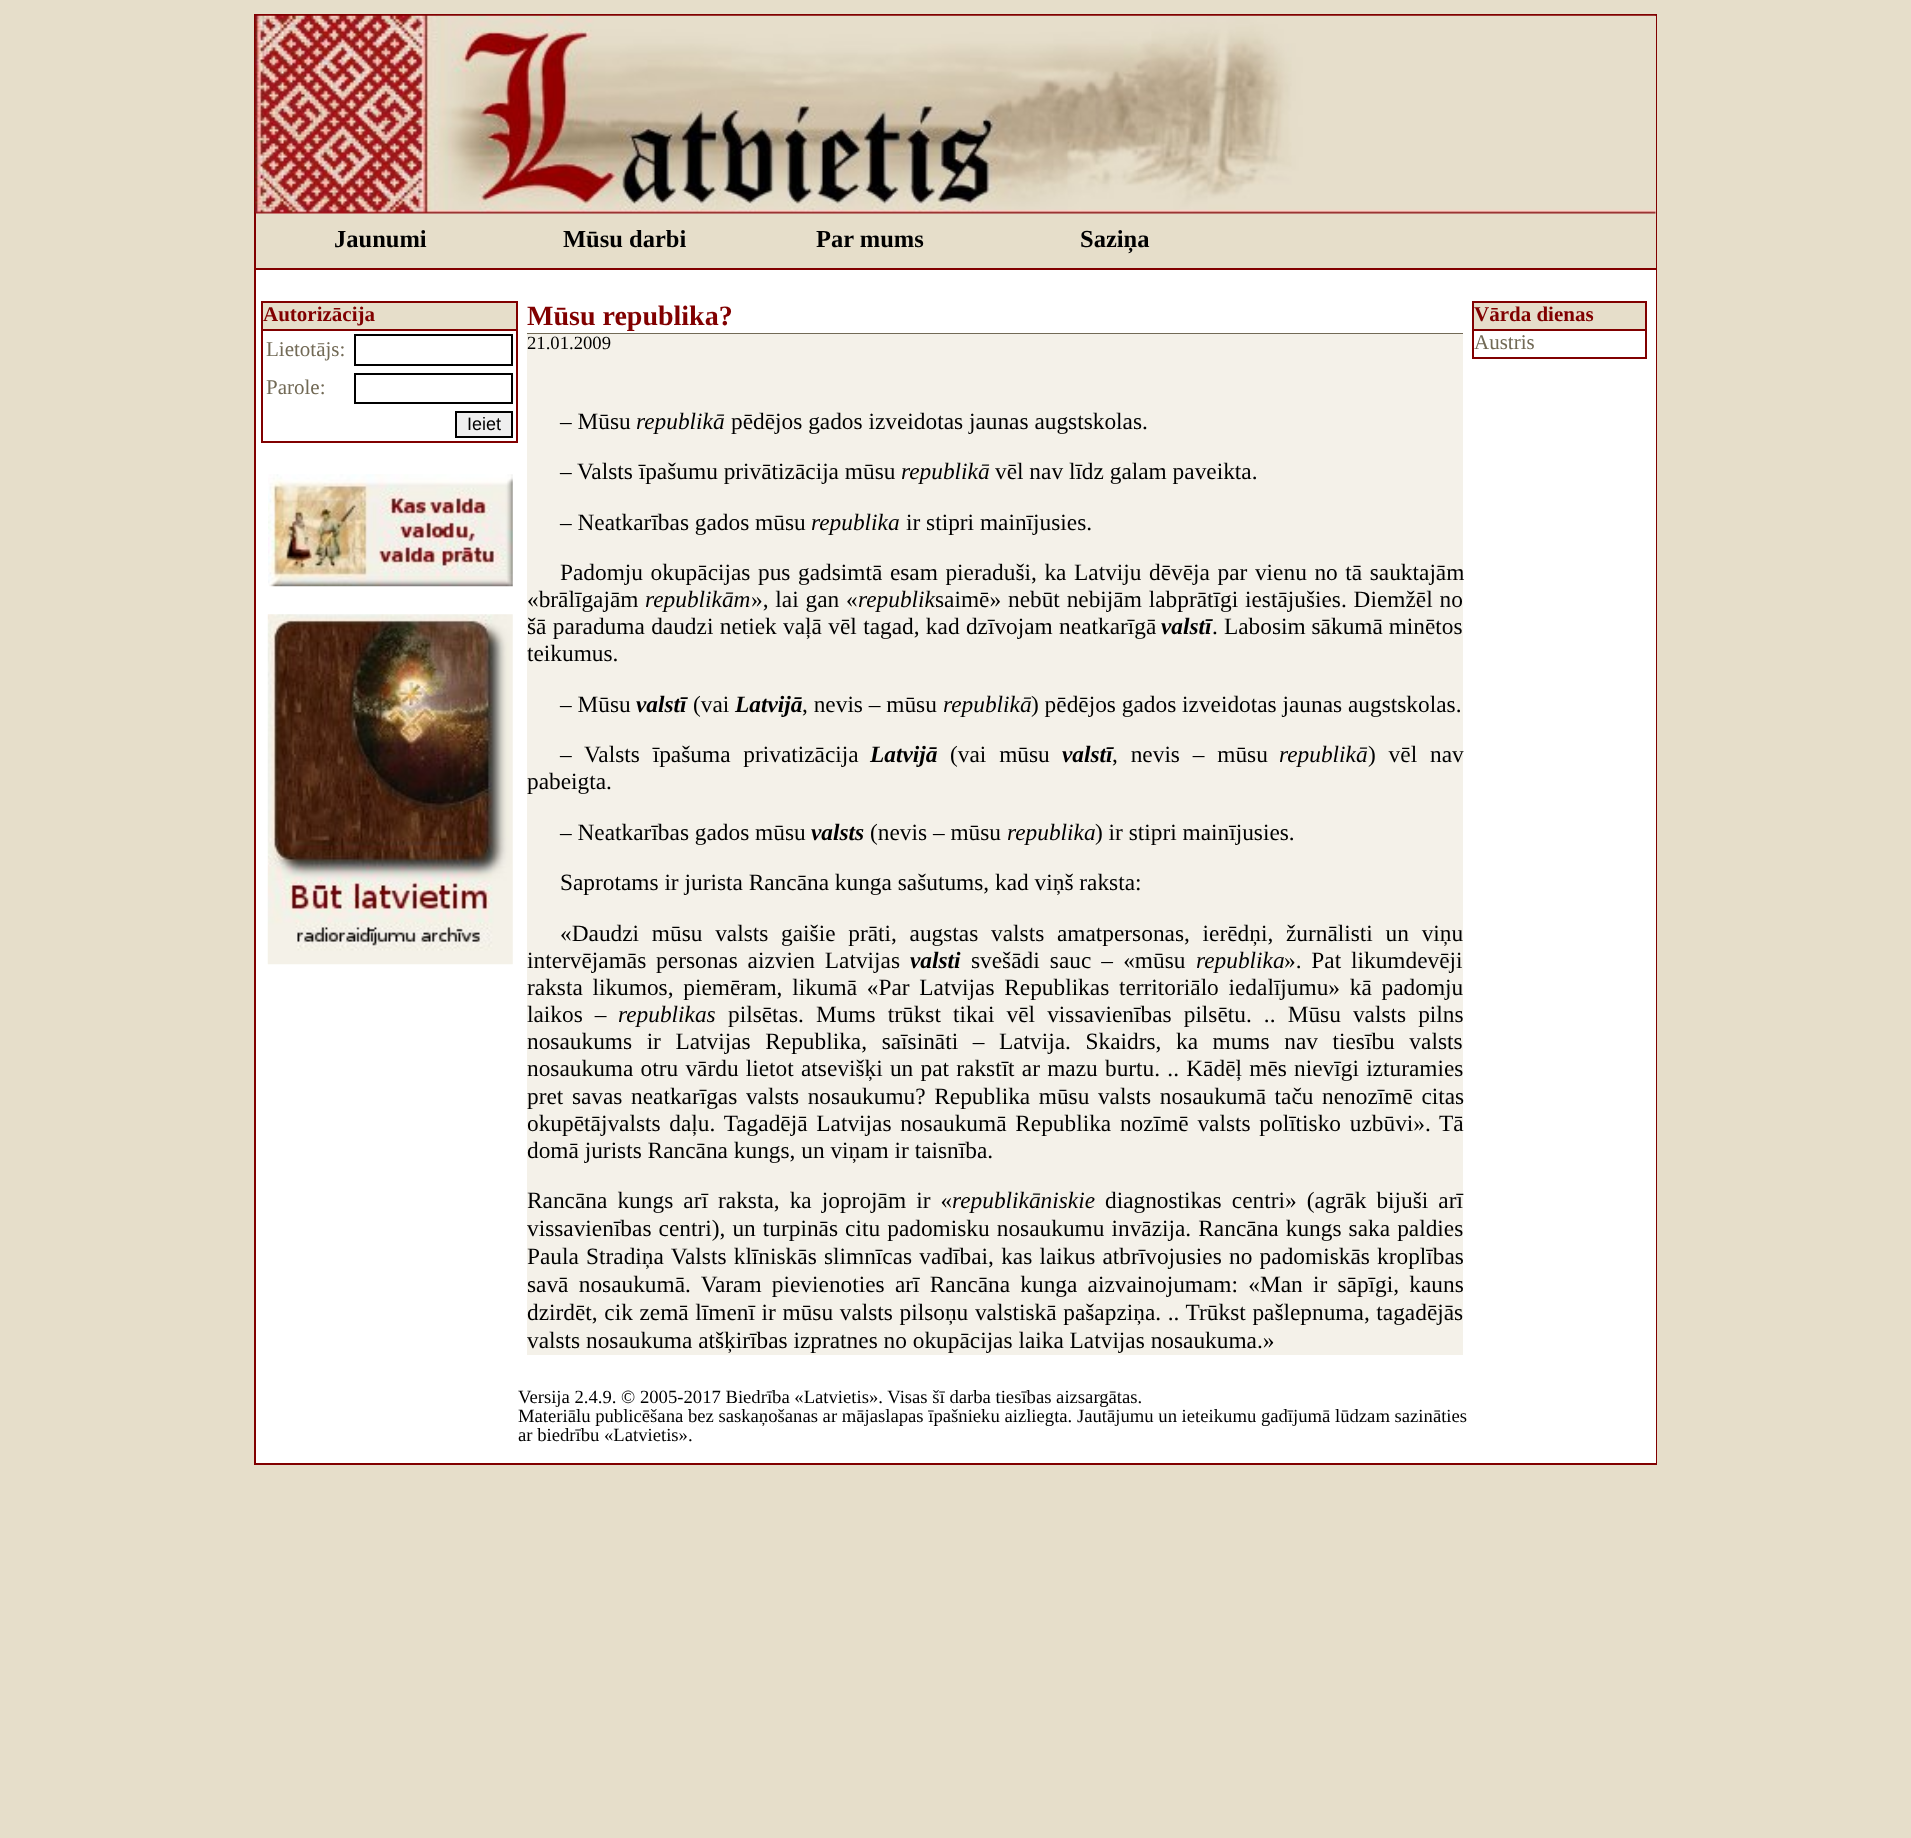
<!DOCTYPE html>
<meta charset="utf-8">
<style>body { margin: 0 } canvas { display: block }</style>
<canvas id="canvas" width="1911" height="1838"></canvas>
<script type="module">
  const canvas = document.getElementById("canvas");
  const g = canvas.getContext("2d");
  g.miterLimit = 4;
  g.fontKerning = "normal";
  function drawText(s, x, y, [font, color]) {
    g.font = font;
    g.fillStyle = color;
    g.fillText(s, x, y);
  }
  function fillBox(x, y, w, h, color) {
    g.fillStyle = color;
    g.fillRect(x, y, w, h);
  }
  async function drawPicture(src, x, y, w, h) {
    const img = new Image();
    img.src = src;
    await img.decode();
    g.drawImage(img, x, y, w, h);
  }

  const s1 = ["bold 24.5px Liberation Serif", "#000000"];
  const s2 = ["bold 21px Liberation Serif", "#810000"];
  const s3 = ["21px Liberation Serif", "#726A56"];
  const s4 = ["18px Liberation Sans", "#000000"];
  const s5 = ["bold 28px Liberation Serif", "#810000"];
  const s6 = ["18.67px Liberation Serif", "#000000"];
  const s7 = ["23.35px Liberation Serif", "#000000"];
  const s8 = ["italic 23.35px Liberation Serif", "#000000"];
  const s9 = ["italic bold 23.35px Liberation Serif", "#000000"];

  fillBox(0, 0, 1911, 1838, "#E6DECA");
  fillBox(256, 270, 1216, 1193, "#FFFFFF");
  g.strokeStyle = "#810000";
  g.lineWidth = 2;
  g.strokeRect(255, 15, 1401, 1449);
  fillBox(1655, 16, 1, 252, "#E6DECA");
  await drawPicture("pic1.png", 255, 15, 1401, 199);
  fillBox(256, 268, 1400, 2, "#810000");
  drawText("Jaunumi", 334, 247, s1);
  drawText("Mūsu darbi", 563, 247, s1);
  drawText("Par mums", 816, 247, s1);
  drawText("Saziņa", 1080, 247, s1);
  fillBox(263, 303, 253, 26, "#E6DECA");
  fillBox(261, 301, 257, 2, "#810000");
  fillBox(516, 301, 2, 28, "#810000");
  fillBox(261, 301, 2, 28, "#810000");
  drawText("Autorizācija", 263, 321, s2);
  fillBox(261, 329, 257, 2, "#810000");
  fillBox(516, 329, 2, 112, "#810000");
  fillBox(261, 329, 2, 112, "#810000");
  drawText("Lietotājs:", 266, 356, s3);
  g.strokeStyle = "#000000";
  g.strokeRect(355, 335, 157, 30);
  drawText("Parole:", 266, 394, s3);
  g.strokeRect(355, 374, 157, 29);
  g.fillStyle = "#EFEFEF";
  g.beginPath();
  g.rect(456, 412, 56, 25);
  g.fill();
  g.stroke();
  drawText("Ieiet", 467, 430, s4);
  fillBox(261, 441, 257, 2, "#810000");
  await drawPicture("pic2.png", 268, 474, 245, 113);
  await drawPicture("pic3.png", 267, 614, 246, 351);
  fillBox(527, 333, 936, 1, "#726A56");
  drawText("Mūsu republika?", 527, 325, s5);
  fillBox(527, 334, 936, 1021, "#F4F1E9");
  drawText("21.01.2009", 527, 349, s6);
  drawText("– Mūsu", 560, 429, s7);
  drawText("republikā", 636, 429, s8);
  drawText("pēdējos gados izveidotas jaunas augstskolas.", 731, 429, s7);
  drawText("– Valsts īpašumu privātizācija mūsu", 560, 479, s7);
  drawText("republikā", 901, 479, s8);
  drawText("vēl nav līdz galam paveikta.", 995, 479, s7);
  drawText("– Neatkarības gados mūsu", 560, 530, s7);
  drawText("republika", 811, 530, s8);
  drawText("ir stipri mainījusies.", 906, 530, s7);
  g.wordSpacing = "1.75px";
  drawText("Padomju okupācijas pus gadsimtā esam pieraduši, ka Latviju dēvēja par vienu no tā sauktajām", 560, 580, s7);
  g.wordSpacing = "0px";
  drawText("«brālīgajām", 527, 607, s7);
  drawText("republikām", 645, 607, s8);
  g.wordSpacing = "1px";
  drawText("», lai gan «", 751, 607, s7);
  g.wordSpacing = "0px";
  drawText("republik", 858, 607, s8);
  g.wordSpacing = "1px";
  drawText("saimē» nebūt nebijām labprātīgi iestājušies. Diemžēl no", 935, 607, s7);
  g.wordSpacing = "0.5px";
  drawText("šā paraduma daudzi netiek vaļā vēl tagad, kad dzīvojam neatkarīgā", 527, 634, s7);
  g.wordSpacing = "0px";
  drawText("valstī", 1161, 634, s9);
  drawText(".", 1212, 634, s7);
  drawText("Labosim sākumā minētos", 1224, 634, s7);
  drawText("teikumus.", 527, 661, s7);
  drawText("– Mūsu", 560, 712, s7);
  drawText("valstī", 636, 712, s9);
  drawText("(vai", 693, 712, s7);
  drawText("Latvijā", 735, 712, s9);
  drawText(", nevis – mūsu", 802, 712, s7);
  drawText("republikā", 943, 712, s8);
  drawText(") pēdējos gados izveidotas jaunas augstskolas.", 1031, 712, s7);
  g.wordSpacing = "7px";
  drawText("– Valsts īpašuma privatizācija", 560, 762, s7);
  g.wordSpacing = "0px";
  drawText("Latvijā", 870, 762, s9);
  g.wordSpacing = "7px";
  drawText("(vai mūsu", 950, 762, s7);
  g.wordSpacing = "0px";
  drawText("valstī", 1062, 762, s9);
  g.wordSpacing = "7px";
  drawText(", nevis – mūsu", 1112, 762, s7);
  g.wordSpacing = "0px";
  drawText("republikā", 1279, 762, s8);
  g.wordSpacing = "7px";
  drawText(") vēl nav", 1368, 762, s7);
  g.wordSpacing = "0px";
  drawText("pabeigta.", 527, 789, s7);
  drawText("– Neatkarības gados mūsu", 560, 840, s7);
  drawText("valsts", 811, 840, s9);
  drawText("(nevis – mūsu", 870, 840, s7);
  drawText("republika", 1007, 840, s8);
  drawText(") ir stipri mainījusies.", 1095, 840, s7);
  drawText("Saprotams ir jurista Rancāna kunga sašutums, kad viņš raksta:", 560, 890, s7);
  g.wordSpacing = "6.9px";
  drawText("«Daudzi mūsu valsts gaišie prāti, augstas valsts amatpersonas, ierēdņi, žurnālisti un viņu", 560, 941, s7);
  g.wordSpacing = "4px";
  drawText("intervējamās personas aizvien Latvijas", 527, 968, s7);
  g.wordSpacing = "0px";
  drawText("valsti", 910, 968, s9);
  g.wordSpacing = "4.25px";
  drawText("svešādi sauc – «mūsu", 971, 968, s7);
  g.wordSpacing = "0px";
  drawText("republika", 1196, 968, s8);
  g.wordSpacing = "4px";
  drawText("». Pat likumdevēji", 1284, 968, s7);
  g.wordSpacing = "3.9px";
  drawText("raksta likumos, piemēram, likumā «Par Latvijas Republikas territoriālo iedalījumu» kā padomju", 527, 995, s7);
  g.wordSpacing = "6.25px";
  drawText("laikos –", 527, 1022, s7);
  g.wordSpacing = "0px";
  drawText("republikas", 618, 1022, s8);
  g.wordSpacing = "6.25px";
  drawText("pilsētas. Mums trūkst tikai vēl vissavienības pilsētu. .. Mūsu valsts pilns", 728, 1022, s7);
  g.wordSpacing = "8.75px";
  drawText("nosaukums ir Latvijas Republika, saīsināti – Latvija. Skaidrs, ka mums nav tiesību valsts", 527, 1049, s7);
  g.wordSpacing = "1.4px";
  drawText("nosaukuma otru vārdu lietot atsevišķi un pat rakstīt ar mazu burtu. .. Kādēļ mēs nievīgi izturamies", 527, 1076, s7);
  g.wordSpacing = "2.75px";
  drawText("pret savas neatkarīgas valsts nosaukumu? Republika mūsu valsts nosaukumā taču nenozīmē citas", 527, 1104, s7);
  g.wordSpacing = "2.9px";
  drawText("okupētājvalsts daļu. Tagadējā Latvijas nosaukumā Republika nozīmē valsts polītisko uzbūvi». Tā", 527, 1131, s7);
  g.wordSpacing = "0px";
  drawText("domā jurists Rancāna kungs, un viņam ir taisnība.", 527, 1158, s7);
  g.wordSpacing = "4.25px";
  drawText("Rancāna kungs arī raksta, ka joprojām ir «", 527, 1208, s7);
  g.wordSpacing = "0px";
  drawText("republikāniskie", 952, 1208, s8);
  g.wordSpacing = "4.25px";
  drawText("diagnostikas centri» (agrāk bijuši arī", 1105, 1208, s7);
  g.wordSpacing = "1.25px";
  drawText("vissavienības centri), un turpinās citu padomisku nosaukumu invāzija. Rancāna kungs saka paldies", 527, 1236, s7);
  g.wordSpacing = "1.4px";
  drawText("Paula Stradiņa Valsts klīniskās slimnīcas vadībai, kas laikus atbrīvojusies no padomiskās kroplības", 527, 1264, s7);
  g.wordSpacing = "4.4px";
  drawText("savā nosaukumā. Varam pievienoties arī Rancāna kunga aizvainojumam: «Man ir sāpīgi, kauns", 527, 1292, s7);
  g.wordSpacing = "0.8px";
  drawText("dzirdēt, cik zemā līmenī ir mūsu valsts pilsoņu valstiskā pašapziņa. .. Trūkst pašlepnuma, tagadējās", 527, 1320, s7);
  g.wordSpacing = "0px";
  drawText("valsts nosaukuma atšķirības izpratnes no okupācijas laika Latvijas nosaukuma.»", 527, 1348, s7);
  fillBox(1472, 270, 184, 1193, "#FFFFFF");
  fillBox(1474, 303, 171, 26, "#E6DECA");
  fillBox(1472, 301, 175, 2, "#810000");
  fillBox(1645, 301, 2, 28, "#810000");
  fillBox(1472, 301, 2, 28, "#810000");
  drawText("Vārda dienas", 1474, 321, s2);
  fillBox(1472, 329, 175, 2, "#810000");
  fillBox(1645, 329, 2, 28, "#810000");
  fillBox(1472, 329, 2, 28, "#810000");
  drawText("Austris", 1474, 349, s3);
  fillBox(1472, 357, 175, 2, "#810000");
  drawText("Versija 2.4.9. © 2005-2017 Biedrība «Latvietis». Visas šī darba tiesības aizsargātas.", 518, 1403, s6);
  drawText("Materiālu publicēšana bez saskaņošanas ar mājaslapas īpašnieku aizliegta. Jautājumu un ieteikumu gadījumā lūdzam sazināties", 518, 1422, s6);
  drawText("ar biedrību «Latvietis».", 518, 1441, s6);
</script>
